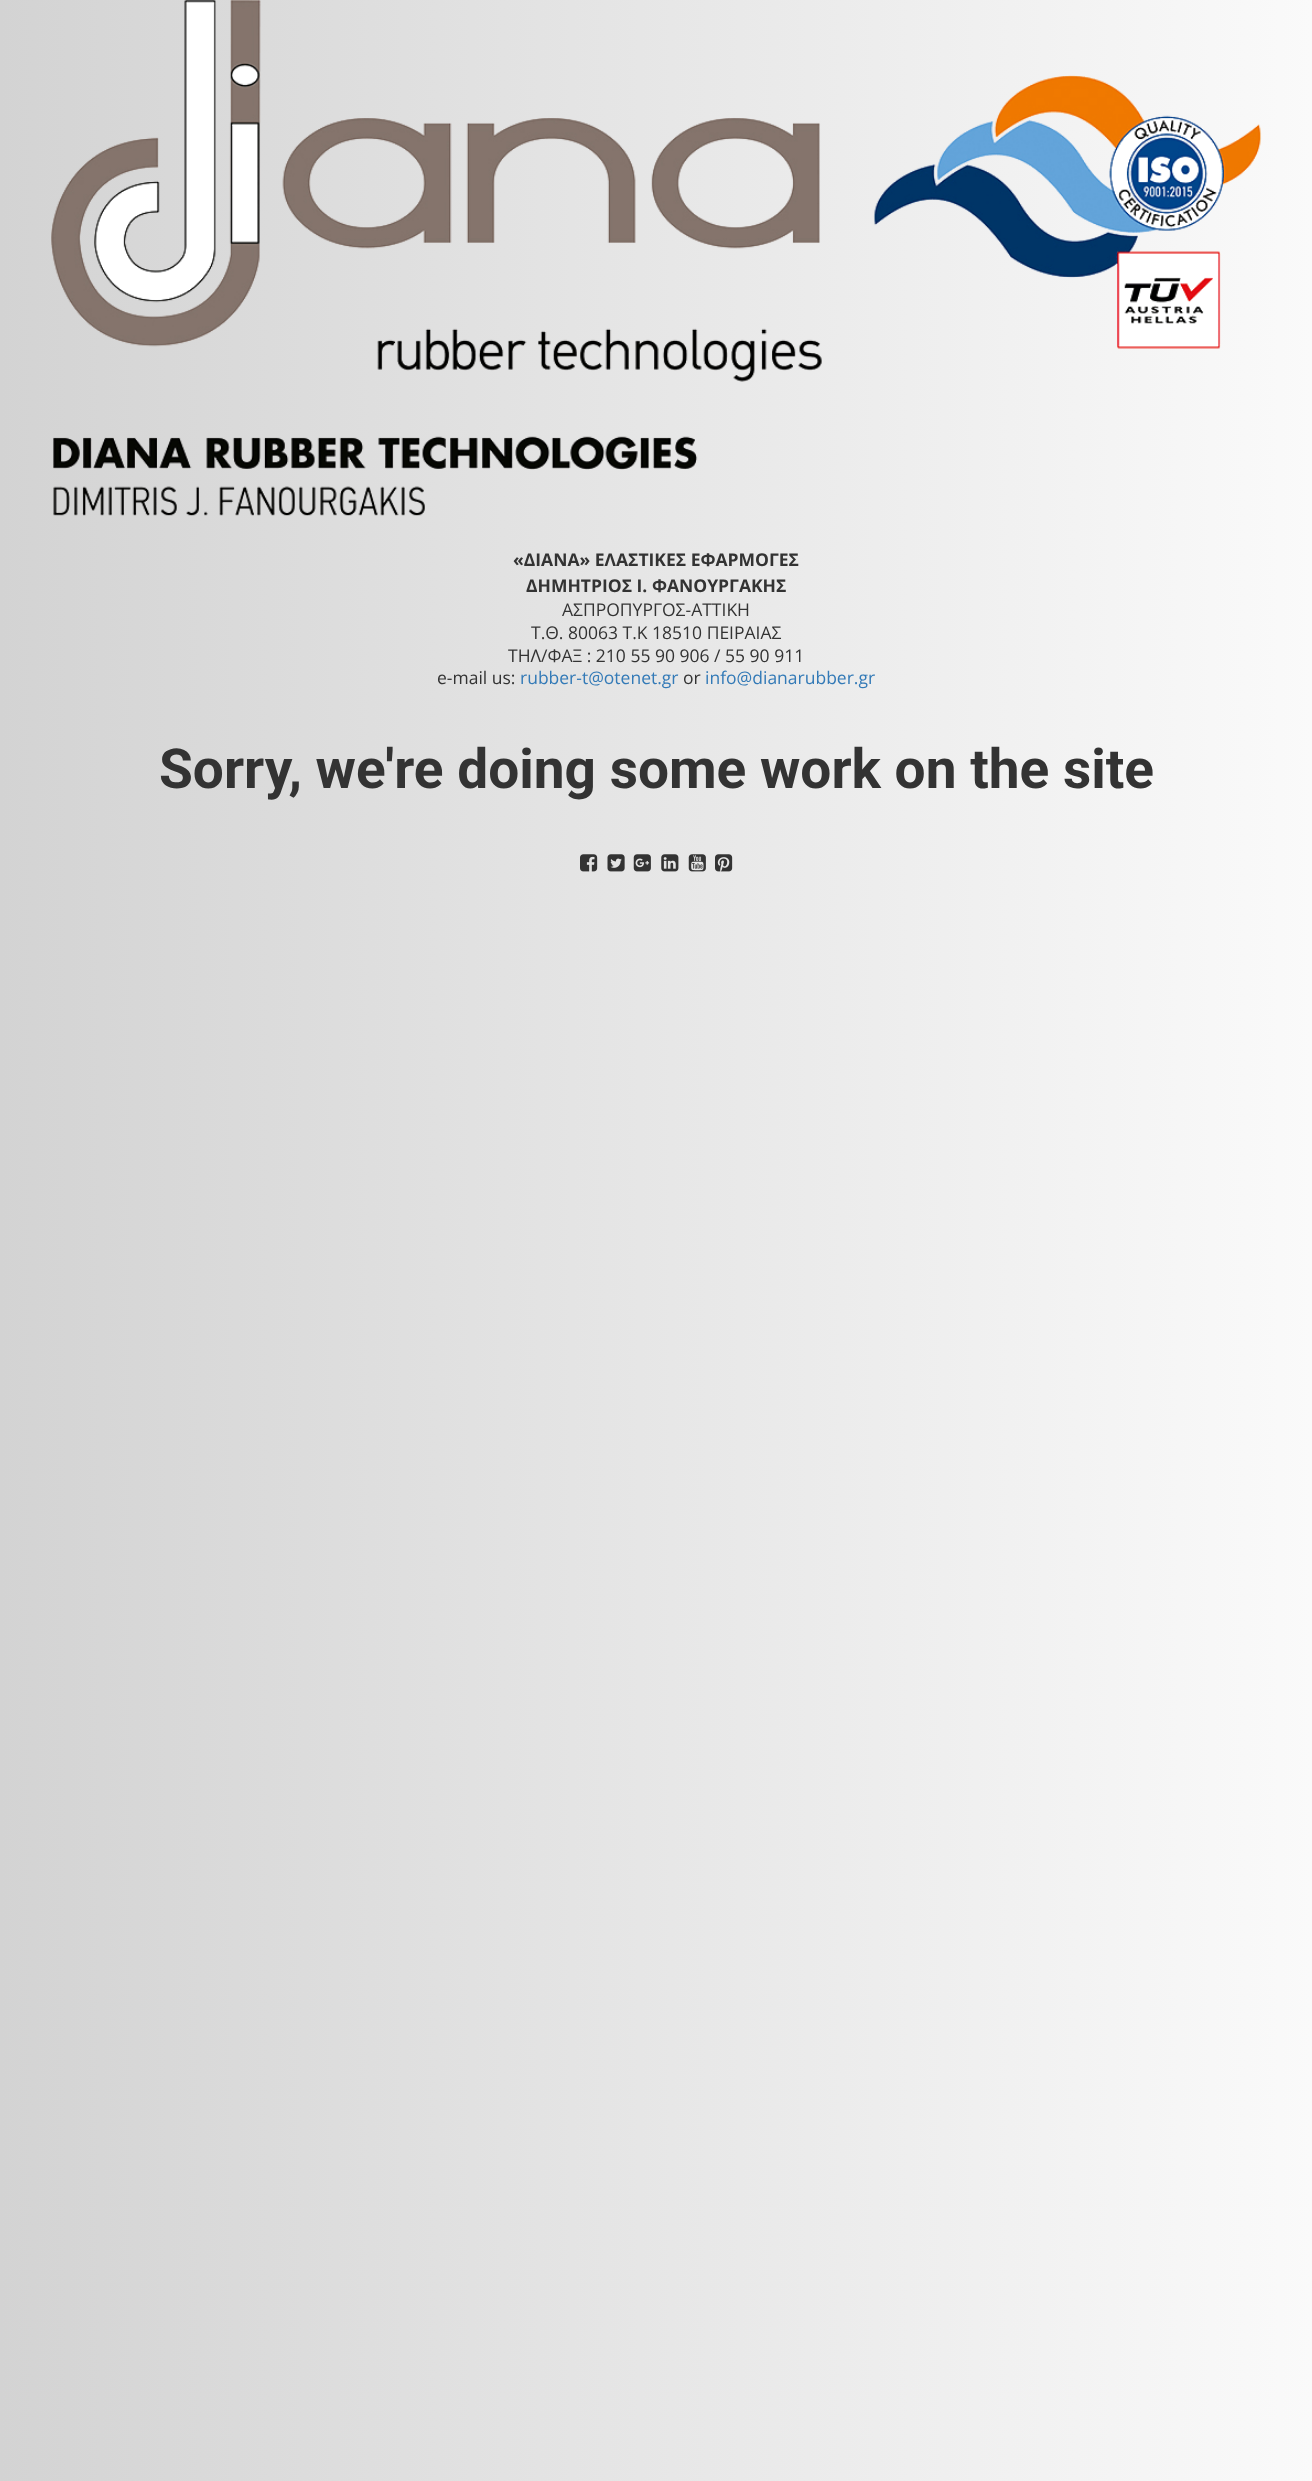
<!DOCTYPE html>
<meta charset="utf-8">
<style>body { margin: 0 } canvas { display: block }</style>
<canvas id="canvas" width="1312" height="2481"></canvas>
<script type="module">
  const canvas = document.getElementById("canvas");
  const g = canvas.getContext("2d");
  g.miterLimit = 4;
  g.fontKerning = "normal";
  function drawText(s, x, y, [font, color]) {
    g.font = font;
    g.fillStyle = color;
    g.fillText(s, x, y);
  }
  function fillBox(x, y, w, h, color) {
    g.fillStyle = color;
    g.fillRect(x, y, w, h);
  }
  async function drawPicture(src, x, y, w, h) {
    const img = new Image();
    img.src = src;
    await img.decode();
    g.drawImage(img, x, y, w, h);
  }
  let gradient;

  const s1 = ["bold 17.5px Open Sans", "#333333"];
  const s2 = ["17.5px Open Sans", "#333333"];
  const s3 = ["17.5px Open Sans", "#337AB7"];
  const s4 = ["bold 55px Roboto", "#333333"];

  fillBox(0, 0, 1312, 2481, "#FFFFFF");
  gradient = g.createLinearGradient(0, 1241, 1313, 1241);
  gradient.addColorStop(0, "#D3D3D3");
  gradient.addColorStop(1, "#FAFAFA");
  g.fillStyle = gradient;
  g.fillRect(0, 0, 1312, 2481);
  await drawPicture("pic1.png", 51, 0, 1211, 516);
  drawText("«ΔΙΑΝΑ» ΕΛΑΣΤΙΚΕΣ ΕΦΑΡΜΟΓΕΣ", 513, 566, s1);
  drawText("ΔΗΜΗΤΡΙΟΣ Ι. ΦΑΝΟΥΡΓΑΚΗΣ", 526, 592, s1);
  drawText("ΑΣΠΡΟΠΥΡΓΟΣ-ΑΤΤΙΚΗ", 562, 616, s2);
  drawText("Τ.Θ. 80063 Τ.Κ 18510 ΠΕΙΡΑΙΑΣ", 531, 639, s2);
  drawText("ΤΗΛ/ΦΑΞ : 210 55 90 906 / 55 90 911", 508, 662, s2);
  drawText("e-mail us:", 437, 684, s2);
  drawText("rubber-t@otenet.gr", 520, 684, s3);
  drawText("or", 683, 684, s2);
  drawText("info@dianarubber.gr", 705, 684, s3);
  drawText("Sorry, we're doing some work on the site", 159, 788, s4);
  await drawPicture("pic2.png", 580, 854, 18, 18);
  await drawPicture("pic3.png", 607, 854, 18, 18);
  await drawPicture("pic4.png", 633, 854, 18, 18);
  await drawPicture("pic5.png", 661, 854, 18, 18);
  await drawPicture("pic6.png", 688, 854, 18, 18);
  await drawPicture("pic7.png", 715, 854, 18, 18);
</script>
